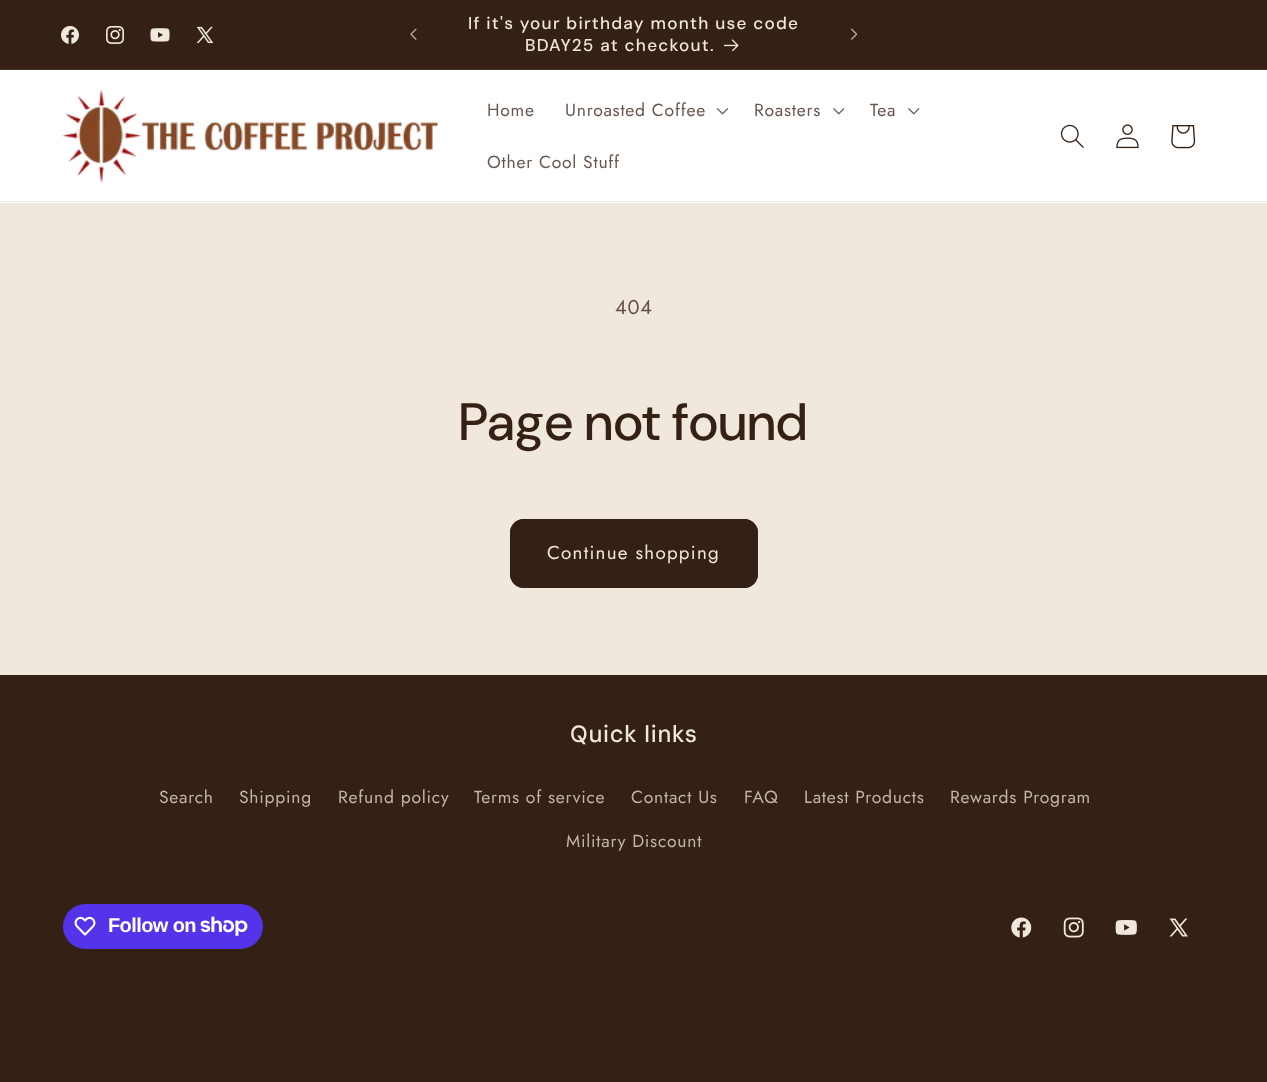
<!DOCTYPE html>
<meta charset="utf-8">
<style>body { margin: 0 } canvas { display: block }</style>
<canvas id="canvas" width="1267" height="1082"></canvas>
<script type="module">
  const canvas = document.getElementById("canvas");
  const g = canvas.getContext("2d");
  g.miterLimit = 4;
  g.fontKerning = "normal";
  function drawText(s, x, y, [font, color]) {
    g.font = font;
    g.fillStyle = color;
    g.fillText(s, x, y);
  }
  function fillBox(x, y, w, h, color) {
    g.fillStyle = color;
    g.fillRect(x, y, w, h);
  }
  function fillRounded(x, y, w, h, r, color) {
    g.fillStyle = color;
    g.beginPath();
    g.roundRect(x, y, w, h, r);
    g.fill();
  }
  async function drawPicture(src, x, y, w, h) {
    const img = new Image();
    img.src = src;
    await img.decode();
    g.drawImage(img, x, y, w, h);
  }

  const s1 = ["500 17.1px 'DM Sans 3'", "#F0E7DD"];
  const s2 = ["17.5px Jost", "#67584F"];
  const s3 = ["20px Jost", "#635246"];
  const s4 = ["500 52.5px DM Sans", "#342014"];
  const s5 = ["18.75px Jost", "#F0E7DD"];
  const s6 = ["500 23.5px 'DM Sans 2'", "#F0E7DD"];
  const s7 = ["17.5px Jost", "#C1B5AB"];
  const s8 = ["bold 20px Liberation Sans", "#FFFFFF"];

  fillBox(0, 0, 1267, 1082, "#F0E7DD");
  fillBox(0, 0, 1267, 69, "#342014");
  fillBox(0, 69, 1267, 1, "#433024");
  await drawPicture("pic1.png", 61, 26, 18, 18);
  await drawPicture("pic2.png", 106, 25, 18, 19);
  await drawPicture("pic3.png", 150, 28, 20, 14);
  await drawPicture("pic4.png", 196, 26, 18, 18);
  await drawPicture("pic5.png", 410, 28, 7, 12);
  g.letterSpacing = "1.25px";
  drawText("If it's your birthday month use code", 468, 29, s1);
  drawText("BDAY25 at checkout.", 525, 51, s1);
  await drawPicture("pic6.png", 724, 39, 15, 12);
  await drawPicture("pic7.png", 851, 28, 6, 12);
  fillBox(0, 70, 1267, 133, "#FFFFFF");
  fillBox(0, 201, 1267, 1, "#EFEDEC");
  await drawPicture("pic8.png", 62, 90, 376, 93);
  g.letterSpacing = "0.75px";
  drawText("Home", 487, 116, s2);
  drawText("Unroasted Coffee", 565, 116, s2);
  await drawPicture("pic9.png", 716, 108, 13, 7);
  drawText("Roasters", 754, 116, s2);
  await drawPicture("pic10.png", 833, 108, 12, 7);
  drawText("Tea", 870, 116, s2);
  await drawPicture("pic10.png", 908, 108, 12, 7);
  drawText("Other Cool Stuff", 487, 168, s2);
  await drawPicture("pic11.png", 1060, 124, 24, 24);
  await drawPicture("pic12.png", 1116, 124, 23, 25);
  await drawPicture("pic13.png", 1171, 125, 25, 24);
  drawText("404", 615, 314, s3);
  drawText("Page not found", 459, 440, s4);
  fillRounded(510, 519, 248, 69, 14, "#342014");
  g.beginPath();
  g.roundRect(513, 522, 242, 63, 11);
  g.strokeStyle = "#342014";
  g.lineWidth = 6;
  g.stroke();
  g.letterSpacing = "1.25px";
  drawText("Continue shopping", 547, 559, s5);
  fillBox(0, 675, 1267, 407, "#342014");
  g.letterSpacing = "0.75px";
  drawText("Quick links", 570, 742, s6);
  drawText("Search", 159, 803, s7);
  drawText("Shipping", 239, 803, s7);
  drawText("Refund policy", 338, 803, s7);
  drawText("Terms of service", 474, 803, s7);
  drawText("Contact Us", 631, 803, s7);
  drawText("FAQ", 744, 803, s7);
  drawText("Latest Products", 804, 803, s7);
  drawText("Rewards Program", 950, 803, s7);
  drawText("Military Discount", 566, 847, s7);
  fillRounded(63, 904, 200, 45, 22.5, "#5433EB");
  await drawPicture("pic14.png", 74, 916, 22, 20);
  g.letterSpacing = "-0.6px";
  drawText("Follow on", 108, 932, s8);
  await drawPicture("pic15.png", 200, 916, 48, 20);
  await drawPicture("pic16.png", 1011, 917, 21, 21);
  await drawPicture("pic17.png", 1063, 917, 21, 21);
  await drawPicture("pic18.png", 1115, 920, 22, 15);
  await drawPicture("pic19.png", 1169, 918, 19, 19);
</script>
